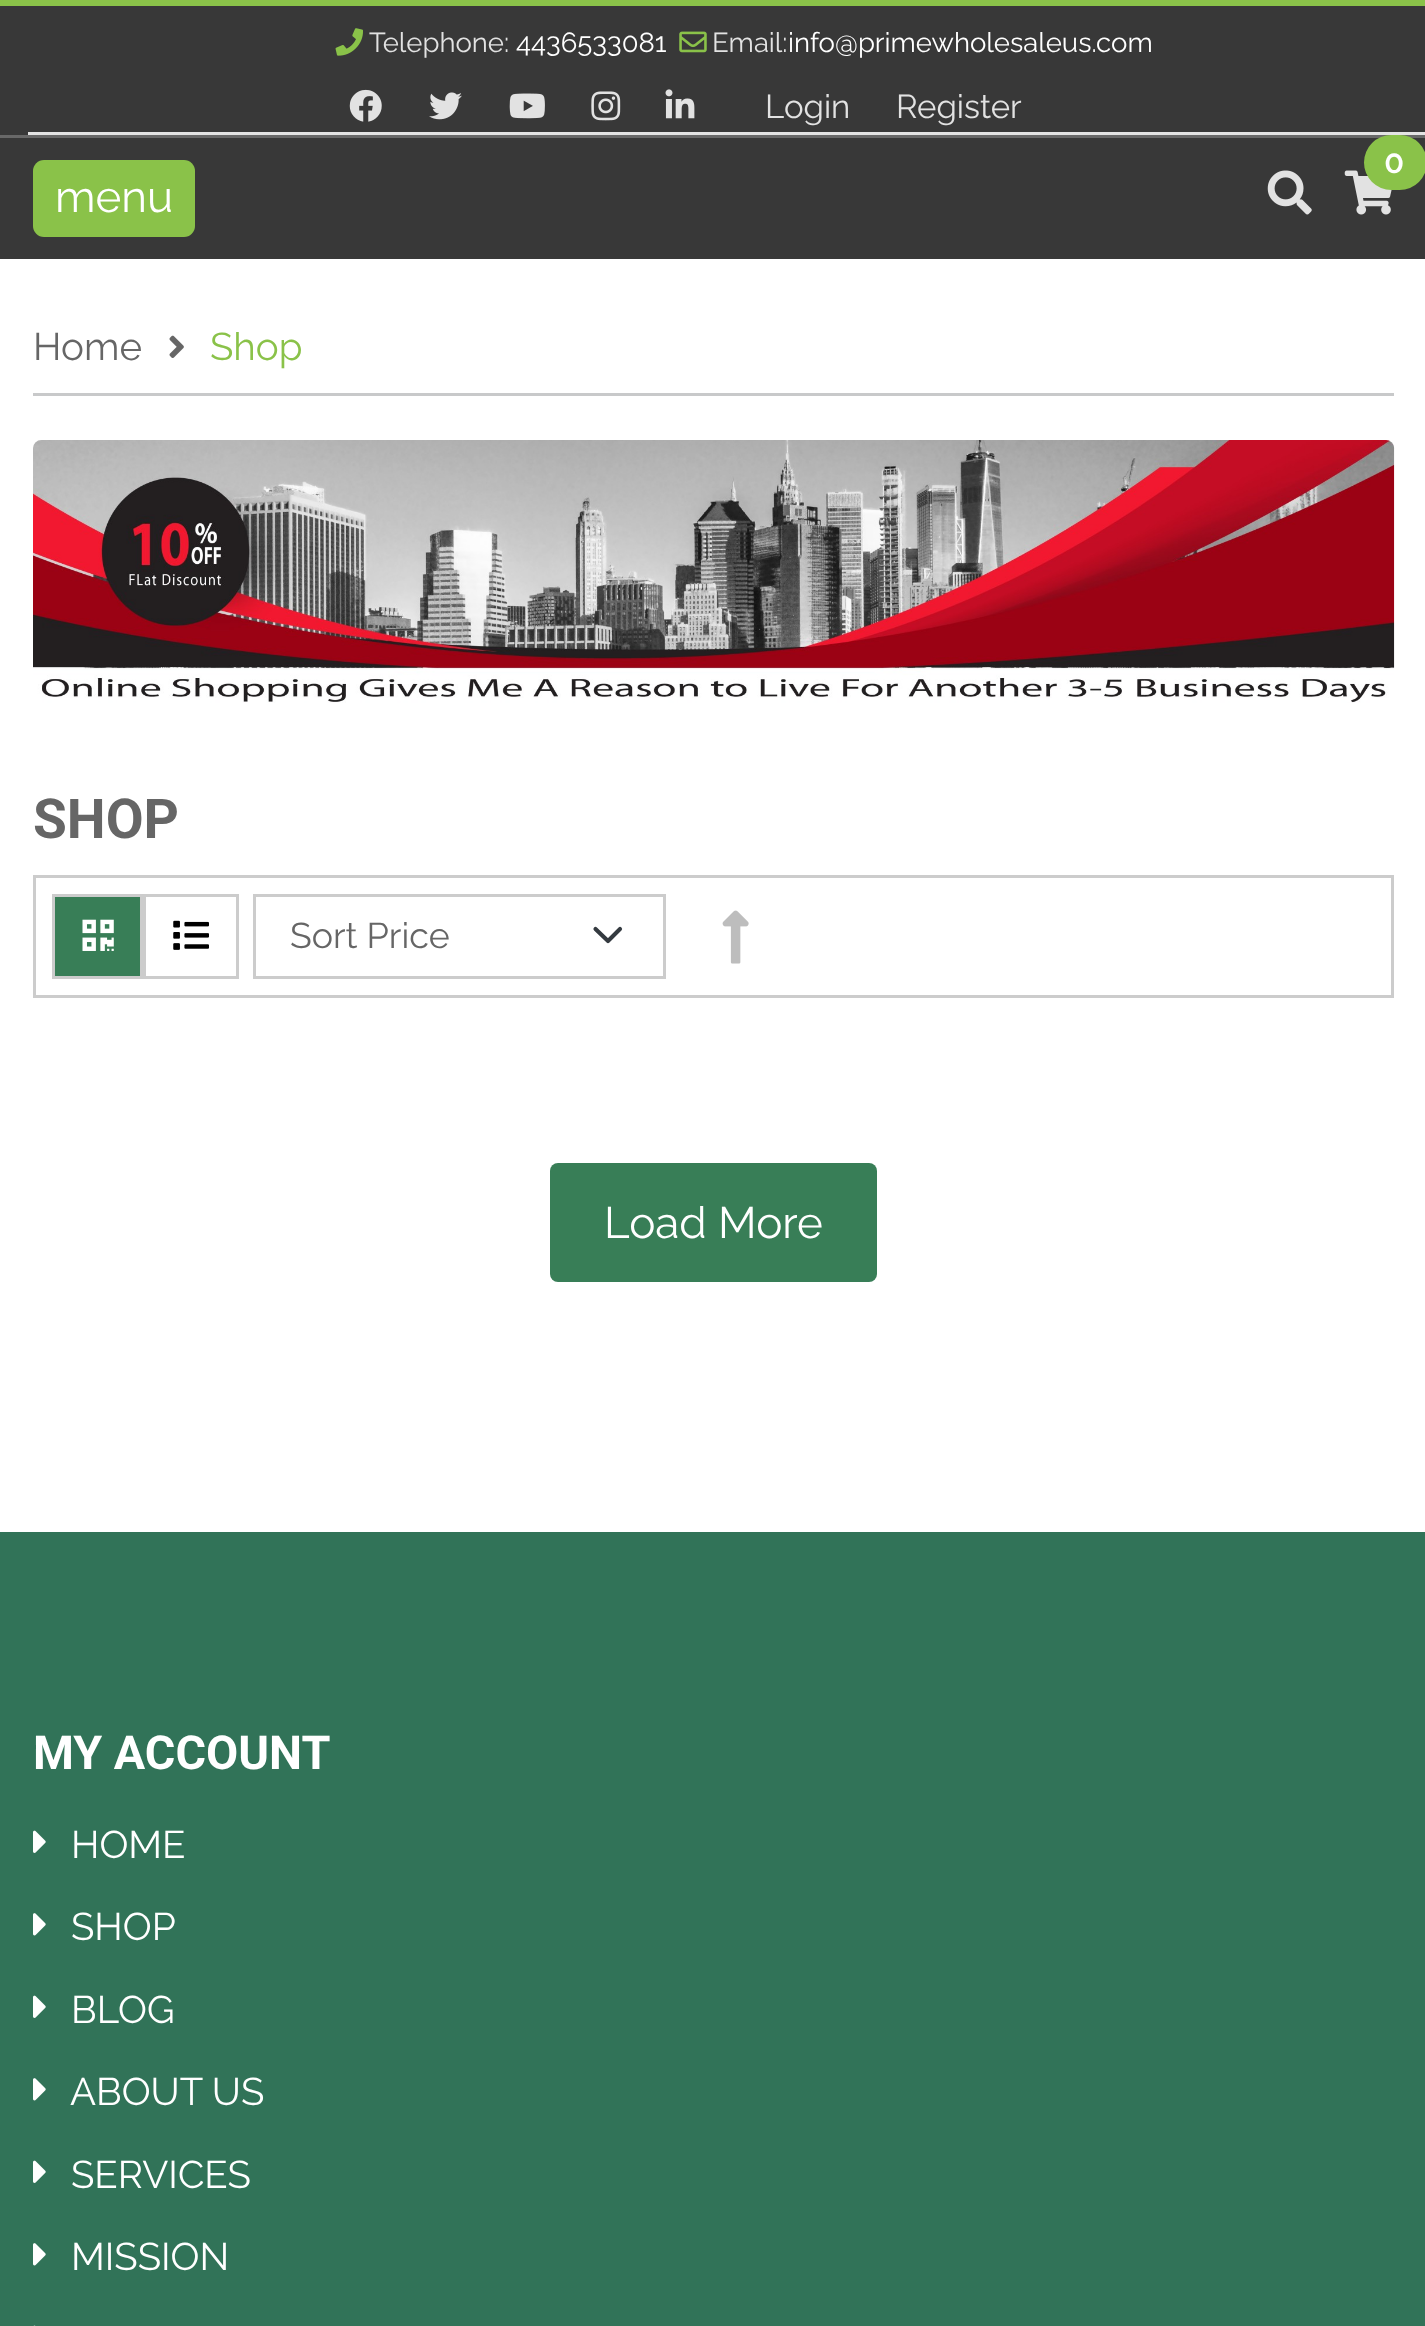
<!DOCTYPE html>
<meta charset="utf-8">
<style>body { margin: 0 } canvas { display: block }</style>
<canvas id="canvas" width="1425" height="2326"></canvas>
<script type="module">
  const canvas = document.getElementById("canvas");
  const g = canvas.getContext("2d");
  g.miterLimit = 4;
  g.fontKerning = "normal";
  function drawText(s, x, y, [font, color]) {
    g.font = font;
    g.fillStyle = color;
    g.fillText(s, x, y);
  }
  function fillBox(x, y, w, h, color) {
    g.fillStyle = color;
    g.fillRect(x, y, w, h);
  }
  function fillRounded(x, y, w, h, r, color) {
    g.fillStyle = color;
    g.beginPath();
    g.roundRect(x, y, w, h, r);
    g.fill();
  }
  async function drawPicture(src, x, y, w, h) {
    const img = new Image();
    img.src = src;
    await img.decode();
    g.drawImage(img, x, y, w, h);
  }

  const s1 = ["27.5px Raleway", "#E2E2E2"];
  const s2 = ["27.5px Raleway", "#FFFFFF"];
  const s3 = ["33px Raleway", "#E2E2E2"];
  const s4 = ["600 33px Raleway", "#FFFFFF"];
  const s5 = ["44px Raleway", "#FFFFFF"];
  const s6 = ["38.5px Raleway", "#666666"];
  const s7 = ["38.5px Raleway", "#8AC249"];
  const s8 = ["bold 55px Roboto", "#666666"];
  const s9 = ["35.75px Raleway", "#666666"];
  const s10 = ["bold 46.75px Roboto", "#FFFFFF"];
  const s11 = ["38.5px Raleway", "#FFFFFF"];

  fillBox(0, 0, 1425, 2326, "#FFFFFF");
  fillBox(0, 6, 1425, 129, "#383838");
  fillBox(0, 0, 1425, 6, "#8AC249");
  fillBox(28, 132, 1397, 3, "#E3E3E3");
  await drawPicture("pic1.png", 335, 28, 28, 28);
  drawText("Telephone:", 369, 52, s1);
  drawText("4436533081", 516, 52, s2);
  await drawPicture("pic2.png", 679, 31, 28, 22);
  drawText("Email:", 712, 52, s1);
  drawText("info@primewholesaleus.com", 788, 52, s2);
  await drawPicture("pic3.png", 349, 89, 33, 33);
  await drawPicture("pic4.png", 429, 92, 33, 28);
  await drawPicture("pic5.png", 509, 93, 36, 26);
  await drawPicture("pic6.png", 591, 91, 30, 30);
  await drawPicture("pic7.png", 665, 89, 30, 30);
  drawText("Login", 765, 118, s3);
  drawText("Register", 896, 118, s3);
  fillBox(0, 138, 1425, 121, "#383838");
  fillBox(0, 135, 1425, 3, "#686868");
  await drawPicture("pic8.png", 1344, 170, 48, 45);
  fillRounded(1364, 135, 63, 55, 27.5, "#8AC249");
  drawText("0", 1384, 173, s4);
  await drawPicture("pic9.png", 1267, 170, 45, 45);
  fillRounded(33, 160, 162, 77, 11, "#8AC249");
  drawText("menu", 55, 212, s5);
  drawText("Home", 33, 360, s6);
  await drawPicture("pic10.png", 169, 335, 15, 23);
  drawText("Shop", 210, 360, s7);
  fillBox(33, 393, 1361, 3, "#C8C9CA");
  await drawPicture("pic11.png", 33, 440, 1362, 263);
  drawText("SHOP", 33, 838, s8);
  g.strokeStyle = "#CCCCCC";
  g.lineWidth = 3;
  g.strokeRect(34.5, 876.5, 1358, 120);
  g.fillStyle = "#387E57";
  g.beginPath();
  g.rect(53.5, 895.5, 88, 82);
  g.fill();
  g.stroke();
  await drawPicture("pic12.png", 82, 919, 32, 32);
  g.strokeRect(144.5, 895.5, 93, 82);
  await drawPicture("pic13.png", 173, 920, 36, 30);
  g.beginPath();
  g.moveTo(595.5, 929);
  g.lineTo(608, 941);
  g.lineTo(620, 929);
  g.strokeStyle = "#343A40";
  g.lineWidth = 4.1;
  g.lineCap = "round";
  g.lineJoin = "round";
  g.stroke();
  g.strokeStyle = "#CCCCCC";
  g.lineWidth = 3;
  g.lineJoin = "miter";
  g.strokeRect(254.5, 895.5, 410, 82);
  drawText("Sort Price", 290, 948, s9);
  await drawPicture("pic14.png", 722, 910, 27, 54);
  fillRounded(550, 1163, 327, 119, 8, "#387E57");
  drawText("Load More", 604, 1238, s5);
  fillBox(0, 1532, 1425, 794, "#317358");
  drawText("MY ACCOUNT", 33, 1769, s10);
  await drawPicture("pic15.png", 33, 1830, 13, 23);
  drawText("HOME", 71, 1858, s11);
  await drawPicture("pic16.png", 33, 1913, 13, 23);
  drawText("SHOP", 71, 1940, s11);
  await drawPicture("pic15.png", 33, 1995, 13, 23);
  drawText("BLOG", 71, 2023, s11);
  await drawPicture("pic16.png", 33, 2078, 13, 23);
  drawText("ABOUT US", 70, 2105, s11);
  await drawPicture("pic15.png", 33, 2160, 13, 23);
  drawText("SERVICES", 71, 2188, s11);
  await drawPicture("pic16.png", 33, 2243, 13, 23);
  drawText("MISSION", 71, 2270, s11);
  await drawPicture("pic17.png", 33, 2325, 3, 1);
</script>
